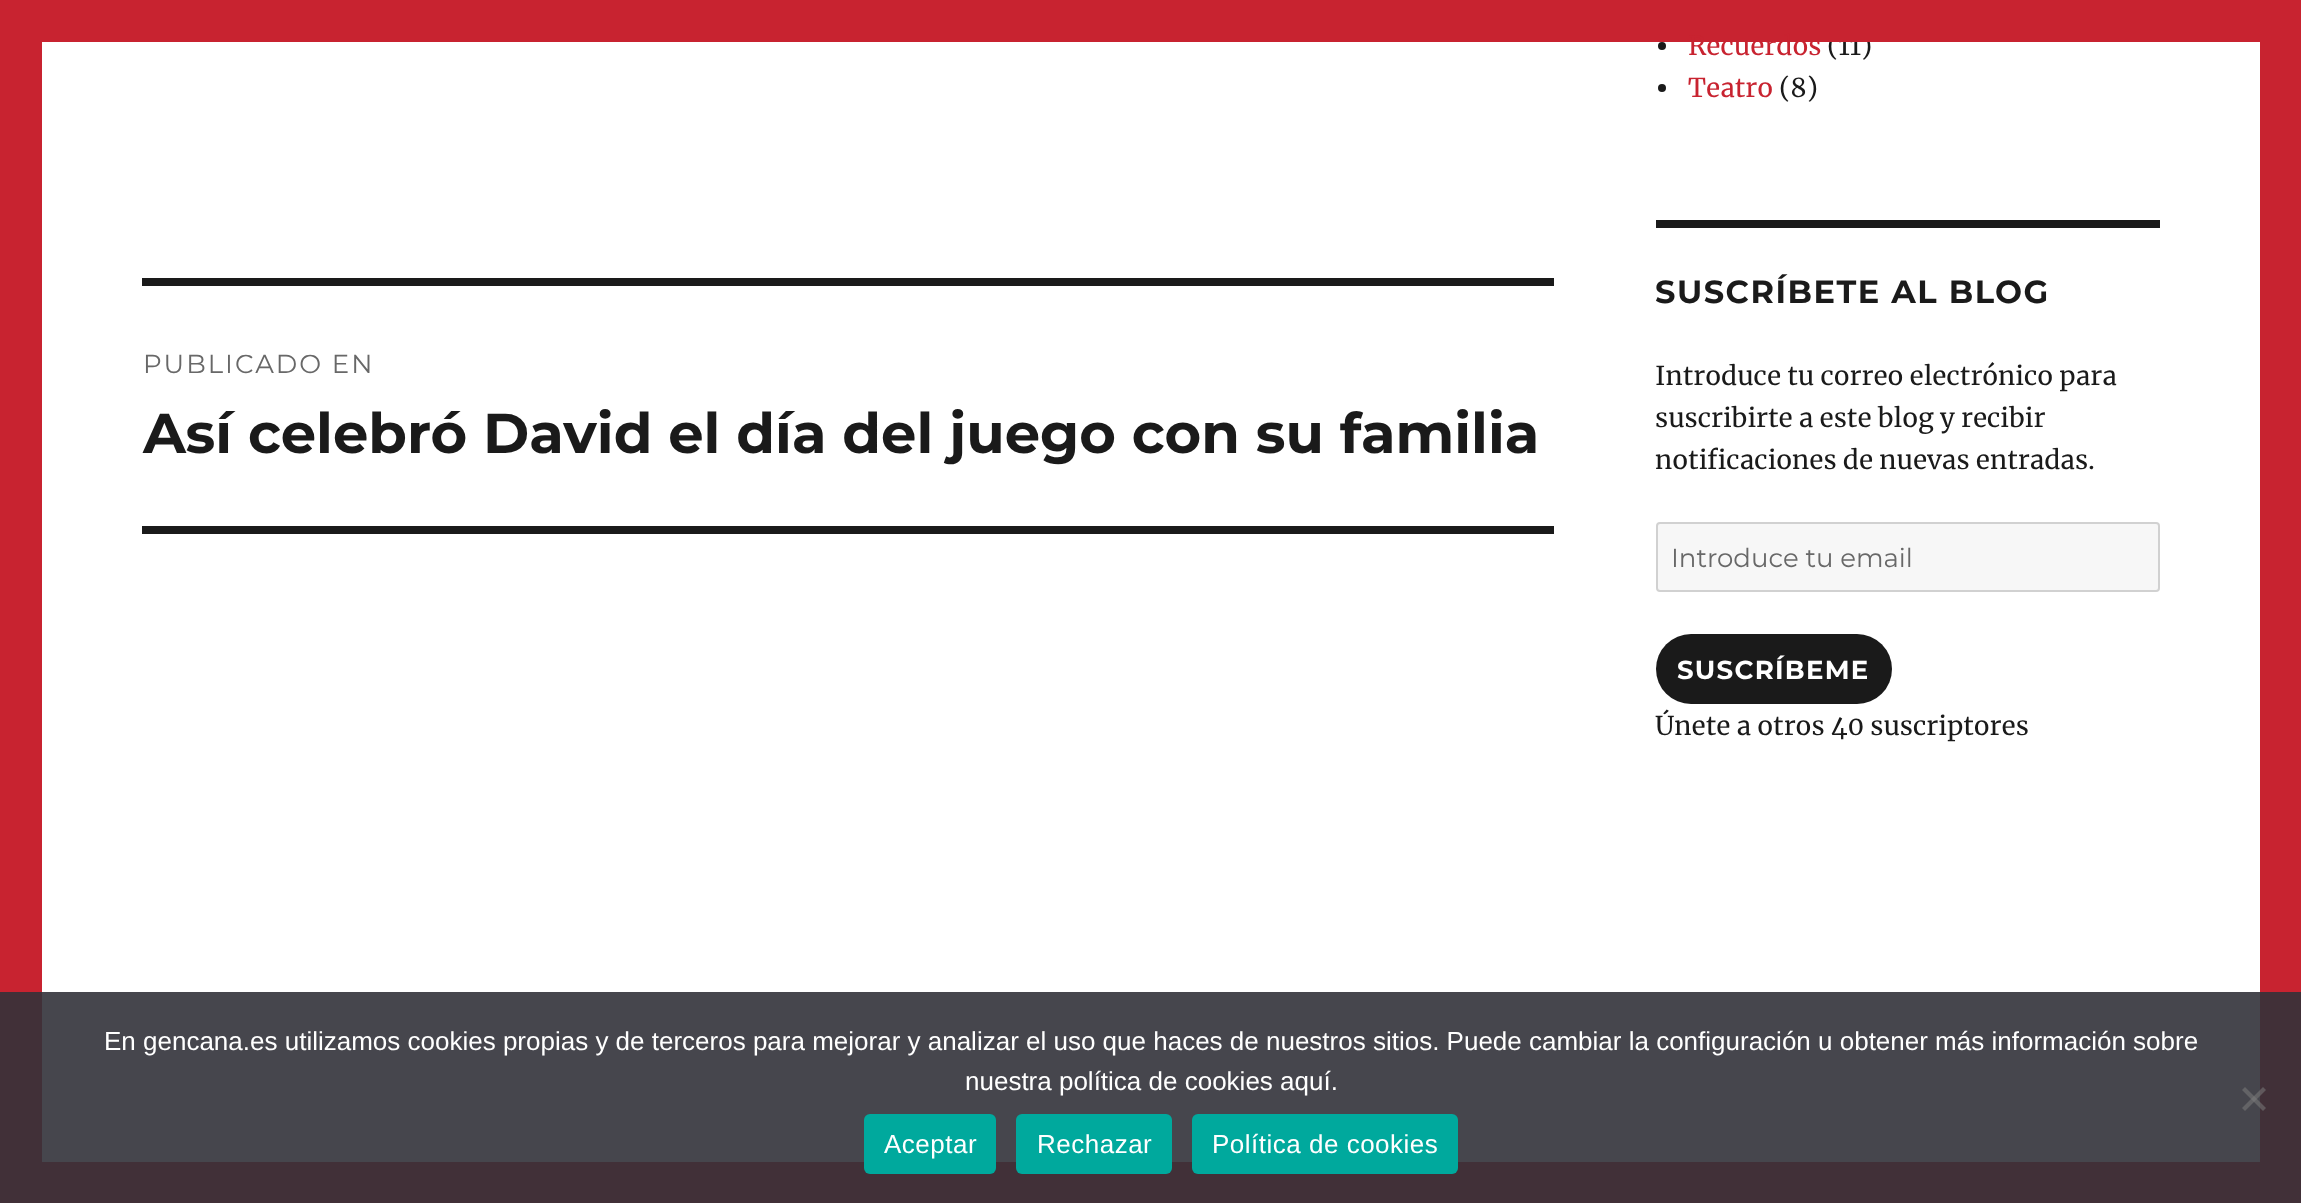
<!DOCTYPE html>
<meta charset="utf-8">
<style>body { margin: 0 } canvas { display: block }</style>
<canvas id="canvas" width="2301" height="1203"></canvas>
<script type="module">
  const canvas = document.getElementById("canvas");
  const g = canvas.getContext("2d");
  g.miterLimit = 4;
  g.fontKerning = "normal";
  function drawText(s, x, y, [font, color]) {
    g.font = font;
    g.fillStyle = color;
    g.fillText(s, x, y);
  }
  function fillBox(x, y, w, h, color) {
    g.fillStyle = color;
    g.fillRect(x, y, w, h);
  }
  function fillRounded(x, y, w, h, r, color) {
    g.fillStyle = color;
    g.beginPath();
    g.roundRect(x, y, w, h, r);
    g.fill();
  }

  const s1 = ["100 26px Montserrat", "#686868"];
  const s2 = ["100 56px 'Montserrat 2'", "#1A1A1A"];
  const s3 = ["26px Merriweather", "#C82330"];
  const s4 = ["26px Merriweather", "#1A1A1A"];
  const s5 = ["100 32px 'Montserrat 2'", "#1A1A1A"];
  const s6 = ["100 26px 'Montserrat 2'", "#FFFFFF"];
  const s7 = ["26px Liberation Sans", "#FFFFFF"];

  fillBox(0, 0, 2301, 1203, "#C82330");
  fillBox(42, 42, 2218, 1120, "#FFFFFF");
  fillBox(142, 278, 1412, 8, "#1A1A1A");
  fillBox(142, 526, 1412, 8, "#1A1A1A");
  g.letterSpacing = "2px";
  drawText("PUBLICADO EN", 143, 373, s1);
  g.letterSpacing = "0px";
  drawText("Así celebró David el día del juego con su familia", 143, 453, s2);
  g.beginPath();
  g.arc(1662, 46, 4, 0, Math.PI * 2);
  g.fill();
  drawText("Recuerdos", 1688, 55, s3);
  drawText("(11)", 1827, 55, s4);
  g.beginPath();
  g.arc(1662, 88, 4, 0, Math.PI * 2);
  g.fill();
  drawText("Teatro", 1688, 97, s3);
  drawText("(8)", 1779, 97, s4);
  fillBox(1656, 220, 504, 8, "#1A1A1A");
  g.letterSpacing = "1.5px";
  drawText("SUSCRÍBETE AL BLOG", 1655, 303, s5);
  g.letterSpacing = "0px";
  drawText("Introduce tu correo electrónico para", 1655, 385, s4);
  drawText("suscribirte a este blog y recibir", 1655, 427, s4);
  drawText("notificaciones de nuevas entradas.", 1655, 469, s4);
  g.fillStyle = "#F7F7F7";
  g.beginPath();
  g.roundRect(1657, 523, 502, 68, 3);
  g.fill();
  g.strokeStyle = "#D1D1D1";
  g.lineWidth = 2;
  g.stroke();
  drawText("Introduce tu email", 1671, 567, s1);
  fillRounded(1656, 634, 236, 70, 35, "#1A1A1A");
  g.letterSpacing = "1.25px";
  drawText("SUSCRÍBEME", 1677, 679, s6);
  g.letterSpacing = "0px";
  drawText("Únete a otros 40 suscriptores", 1655, 735, s4);
  fillBox(1829, 33, 41, 9, "#C82330");
  fillBox(0, 992, 2301, 211, "rgba(50, 50, 58, 0.9)");
  drawText("En gencana.es utilizamos cookies propias y de terceros para mejorar y analizar el uso que haces de nuestros sitios. Puede cambiar la configuración u obtener más información sobre", 104, 1050, s7);
  drawText("nuestra política de cookies aquí.", 965, 1090, s7);
  g.fillStyle = "rgba(128, 128, 128, 0.5)";
  g.beginPath();
  g.moveTo(2263, 1087);
  g.lineTo(2266, 1090);
  g.lineTo(2245, 1111);
  g.lineTo(2242, 1108);
  g.closePath();
  g.fill();
  g.beginPath();
  g.moveTo(2242, 1090);
  g.lineTo(2245, 1087);
  g.lineTo(2266, 1108);
  g.lineTo(2263, 1111);
  g.closePath();
  g.fill();
  fillRounded(864, 1114, 132, 60, 6, "#00A99D");
  g.letterSpacing = "0.5px";
  drawText("Aceptar", 884, 1153, s7);
  fillRounded(1016, 1114, 156, 60, 6, "#00A99D");
  drawText("Rechazar", 1037, 1153, s7);
  fillRounded(1192, 1114, 266, 60, 6, "#00A99D");
  drawText("Política de cookies", 1212, 1153, s7);
</script>
